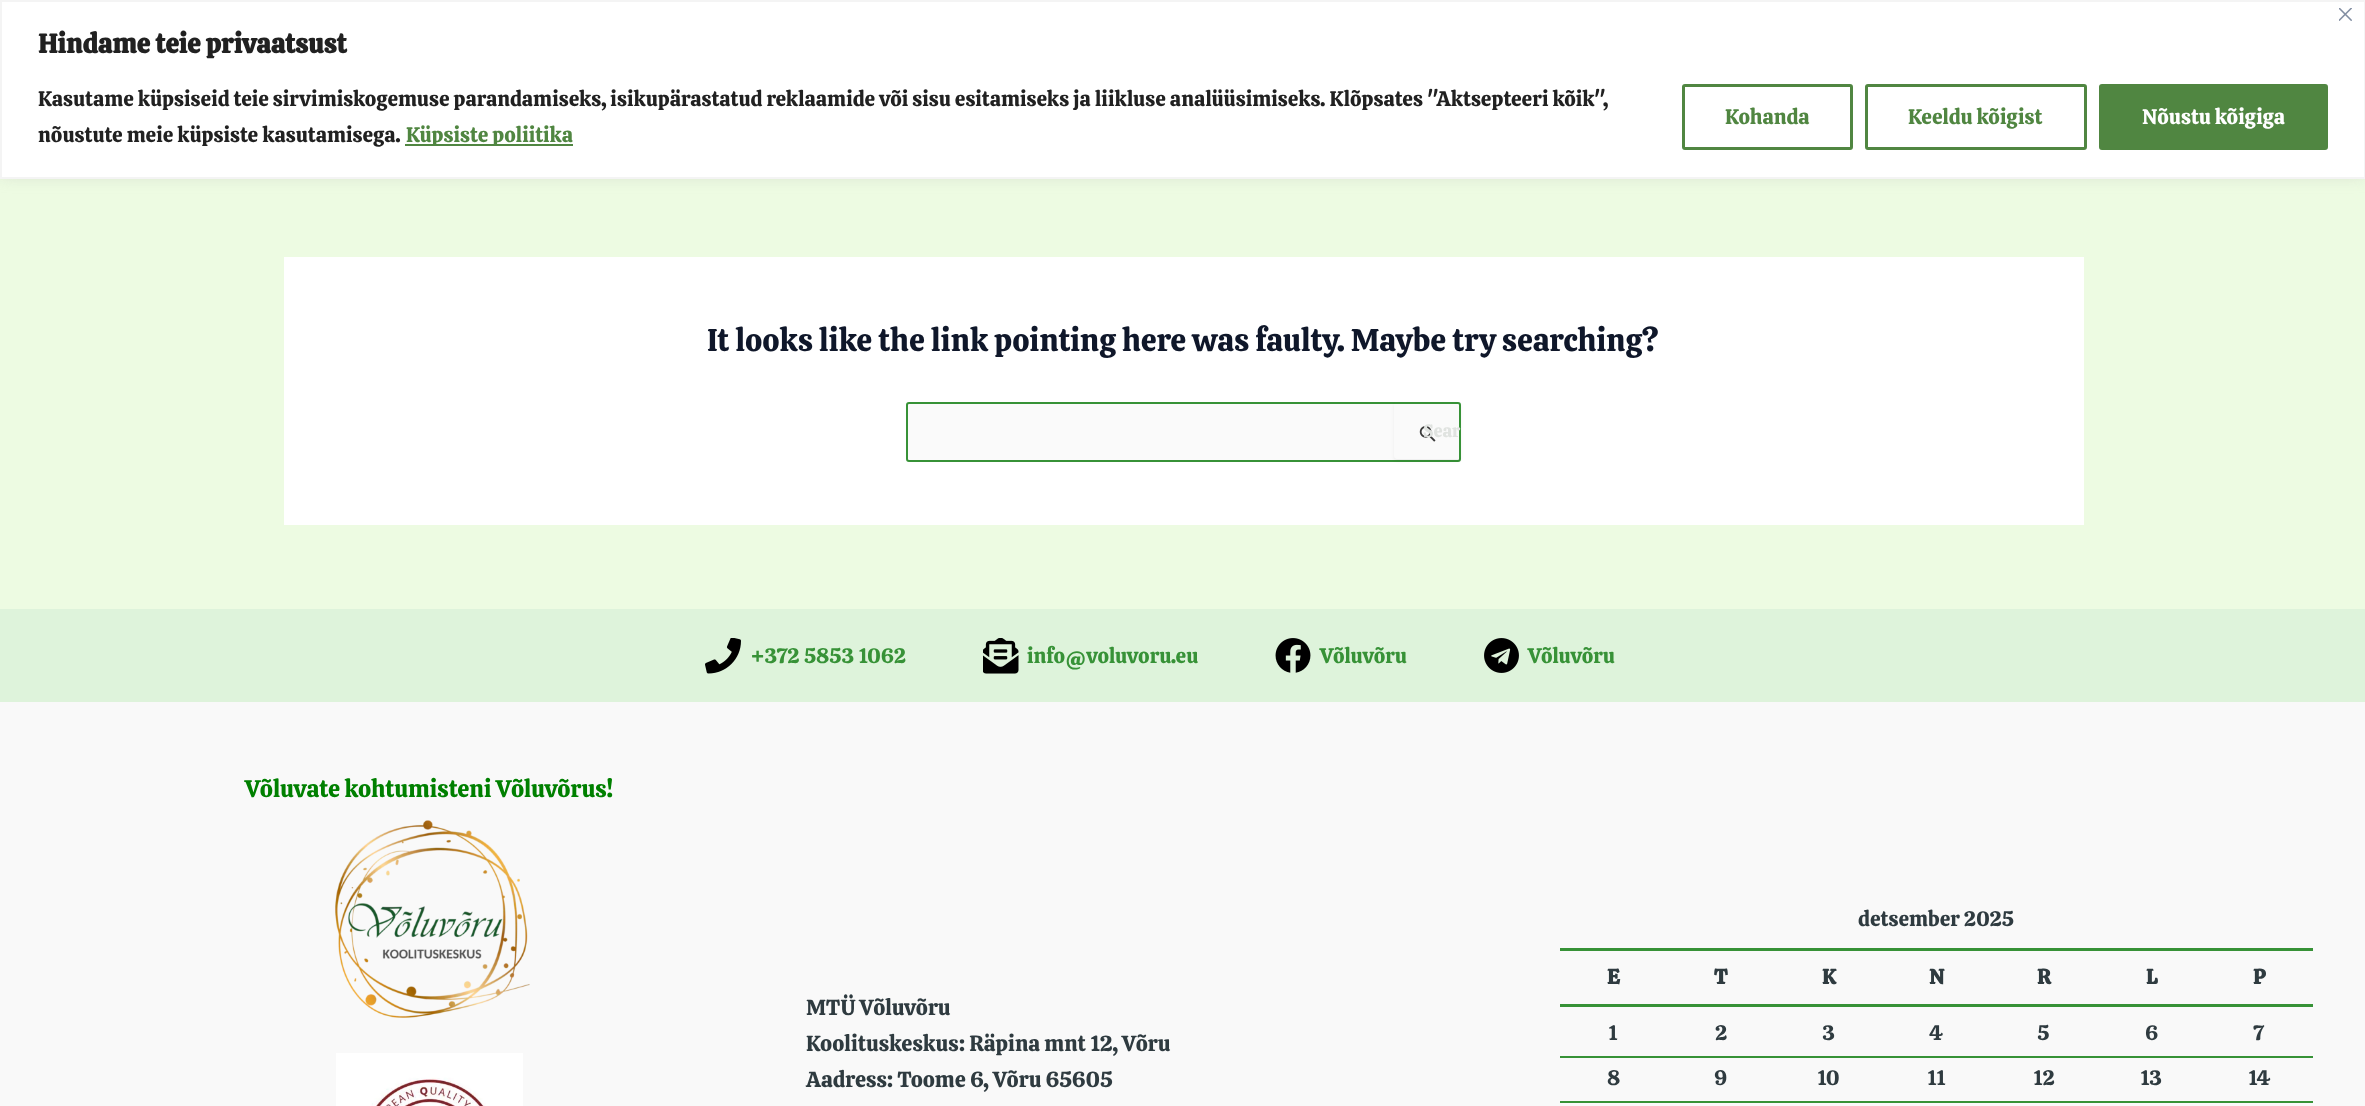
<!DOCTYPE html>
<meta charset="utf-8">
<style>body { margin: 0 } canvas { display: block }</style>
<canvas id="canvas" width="2365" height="1106"></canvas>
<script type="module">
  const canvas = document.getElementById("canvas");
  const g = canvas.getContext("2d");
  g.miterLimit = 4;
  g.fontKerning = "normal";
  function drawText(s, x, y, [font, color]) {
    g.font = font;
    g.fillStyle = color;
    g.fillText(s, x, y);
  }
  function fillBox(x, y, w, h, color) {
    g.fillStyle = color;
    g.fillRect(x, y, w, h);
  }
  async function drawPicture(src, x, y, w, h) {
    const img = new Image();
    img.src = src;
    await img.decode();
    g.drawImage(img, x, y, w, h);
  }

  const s1 = ["bold 27px Calistoga", "#212121"];
  const s2 = ["21px Calistoga", "#212121"];
  const s3 = ["21px Calistoga", "#508641"];
  const s4 = ["21px Calistoga", "#FFFFFF"];
  const s5 = ["31.5px Calistoga", "#0F172A"];
  const s6 = ["18px Calistoga", "#E0E3E0"];
  const s7 = ["21px Calistoga", "#379237"];
  const s8 = ["24px Calistoga", "#008000"];
  const s9 = ["22px Calistoga", "#2F3B40"];
  const s10 = ["21px Calistoga", "#2F3B40"];
  const s11 = ["bold 21px Calistoga", "#2F3B40"];

  fillBox(0, 0, 2365, 1106, "#EDFBE2");
  g.fillStyle = "rgba(172, 171, 171, 0.3)";
  g.filter = "blur(7.5px)";
  g.beginPath();
  g.rect(0, -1, 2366, 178);
  g.fill();
  g.filter = "none";
  g.fillStyle = "#FFFFFF";
  g.beginPath();
  g.rect(1, 1, 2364, 177);
  g.fill();
  g.strokeStyle = "#F4F4F4";
  g.lineWidth = 2;
  g.stroke();
  await drawPicture("pic1.png", 2339, 8, 13, 13);
  drawText("Hindame teie privaatsust", 38, 53, s1);
  drawText("Kasutame küpsiseid teie sirvimiskogemuse parandamiseks, isikupärastatud reklaamide või sisu esitamiseks ja liikluse analüüsimiseks. Klõpsates \"Aktsepteeri kõik\",", 38, 106, s2);
  drawText("nõustute meie küpsiste kasutamisega.", 38, 142, s2);
  fillBox(405, 144, 168, 2, "#508641");
  drawText("Küpsiste poliitika", 406, 142, s3);
  g.beginPath();
  g.roundRect(1683.5, 85.5, 168, 63, 1.5);
  g.strokeStyle = "#508641";
  g.lineWidth = 3;
  g.stroke();
  drawText("Kohanda", 1725, 124, s3);
  g.beginPath();
  g.roundRect(1866.5, 85.5, 219, 63, 1.5);
  g.stroke();
  drawText("Keeldu kõigist", 1908, 124, s3);
  g.beginPath();
  g.roundRect(2100.5, 85.5, 226, 63, 1.5);
  g.fill();
  g.stroke();
  drawText("Nõustu kõigiga", 2142, 124, s4);
  fillBox(284, 257, 1800, 268, "#FFFFFF");
  drawText("It looks like the link pointing here was faulty. Maybe try searching?", 707, 351, s5);
  g.fillStyle = "#FAFAFA";
  g.beginPath();
  g.roundRect(907, 403, 553, 58, 2);
  g.fill();
  g.strokeStyle = "#379237";
  g.lineWidth = 2;
  g.stroke();
  await drawPicture("pic2.png", 1419, 426, 17, 16);
  g.save();
  g.beginPath();
  g.moveTo(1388, 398);
  g.lineTo(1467, 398);
  g.lineTo(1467, 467);
  g.lineTo(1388, 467);
  g.closePath();
  g.moveTo(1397, 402);
  g.lineTo(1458, 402);
  g.bezierCurveTo(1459.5, 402, 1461, 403.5, 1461, 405);
  g.lineTo(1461, 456);
  g.bezierCurveTo(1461, 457.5, 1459.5, 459, 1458, 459);
  g.lineTo(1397, 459);
  g.bezierCurveTo(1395.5, 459, 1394, 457.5, 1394, 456);
  g.lineTo(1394, 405);
  g.bezierCurveTo(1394, 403.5, 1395.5, 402, 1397, 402);
  g.closePath();
  g.clip("evenodd");
  g.fillStyle = "rgba(0, 0, 0, 0.05)";
  g.filter = "blur(1.5px)";
  g.beginPath();
  g.roundRect(1394, 404, 67, 57, 3);
  g.fill();
  g.filter = "none";
  g.restore();
  drawText("Sear", 1423, 437, s6);
  fillBox(0, 609, 2365, 93, "#DEF3DB");
  await drawPicture("pic3.png", 705, 638, 36, 36);
  drawText("+372 5853 1062", 751, 663, s7);
  await drawPicture("pic4.png", 983, 638, 36, 36);
  drawText("info@voluvoru.eu", 1027, 663, s7);
  await drawPicture("pic5.png", 1275, 638, 36, 35);
  drawText("Võluvõru", 1320, 663, s7);
  await drawPicture("pic6.png", 1484, 638, 35, 35);
  drawText("Võluvõru", 1528, 663, s7);
  fillBox(0, 702, 2365, 404, "#F9F9F9");
  drawText("Võluvate kohtumisteni Võluvõrus!", 245, 797, s8);
  await drawPicture("pic7.png", 335, 820, 195, 198);
  await drawPicture("pic8.png", 336, 1053, 187, 53);
  drawText("MTÜ Võluvõru", 806, 1015, s9);
  drawText("Koolituskeskus: Räpina mnt 12, Võru", 806, 1051, s9);
  drawText("Aadress: Toome 6, Võru 65605", 806, 1087, s9);
  drawText("detsember 2025", 1858, 926, s10);
  fillBox(1560, 948, 753, 3, "#379237");
  fillBox(1560, 1004, 753, 3, "#379237");
  drawText("E", 1607, 984, s11);
  drawText("T", 1714, 984, s11);
  drawText("K", 1822, 984, s11);
  drawText("N", 1929, 984, s11);
  drawText("R", 2037, 984, s11);
  drawText("L", 2146, 984, s11);
  drawText("P", 2253, 984, s11);
  fillBox(1560, 1056, 753, 2, "#379237");
  drawText("1", 1608, 1040, s10);
  drawText("2", 1715, 1040, s10);
  drawText("3", 1822, 1040, s10);
  drawText("4", 1929, 1040, s10);
  drawText("5", 2037, 1040, s10);
  drawText("6", 2145, 1040, s10);
  drawText("7", 2253, 1040, s10);
  fillBox(1560, 1101, 753, 2, "#379237");
  drawText("8", 1607, 1085, s10);
  drawText("9", 1714, 1085, s10);
  drawText("10", 1817, 1085, s10);
  drawText("11", 1927, 1085, s10);
  drawText("12", 2033, 1085, s10);
  drawText("13", 2140, 1085, s10);
  drawText("14", 2248, 1085, s10);
</script>
